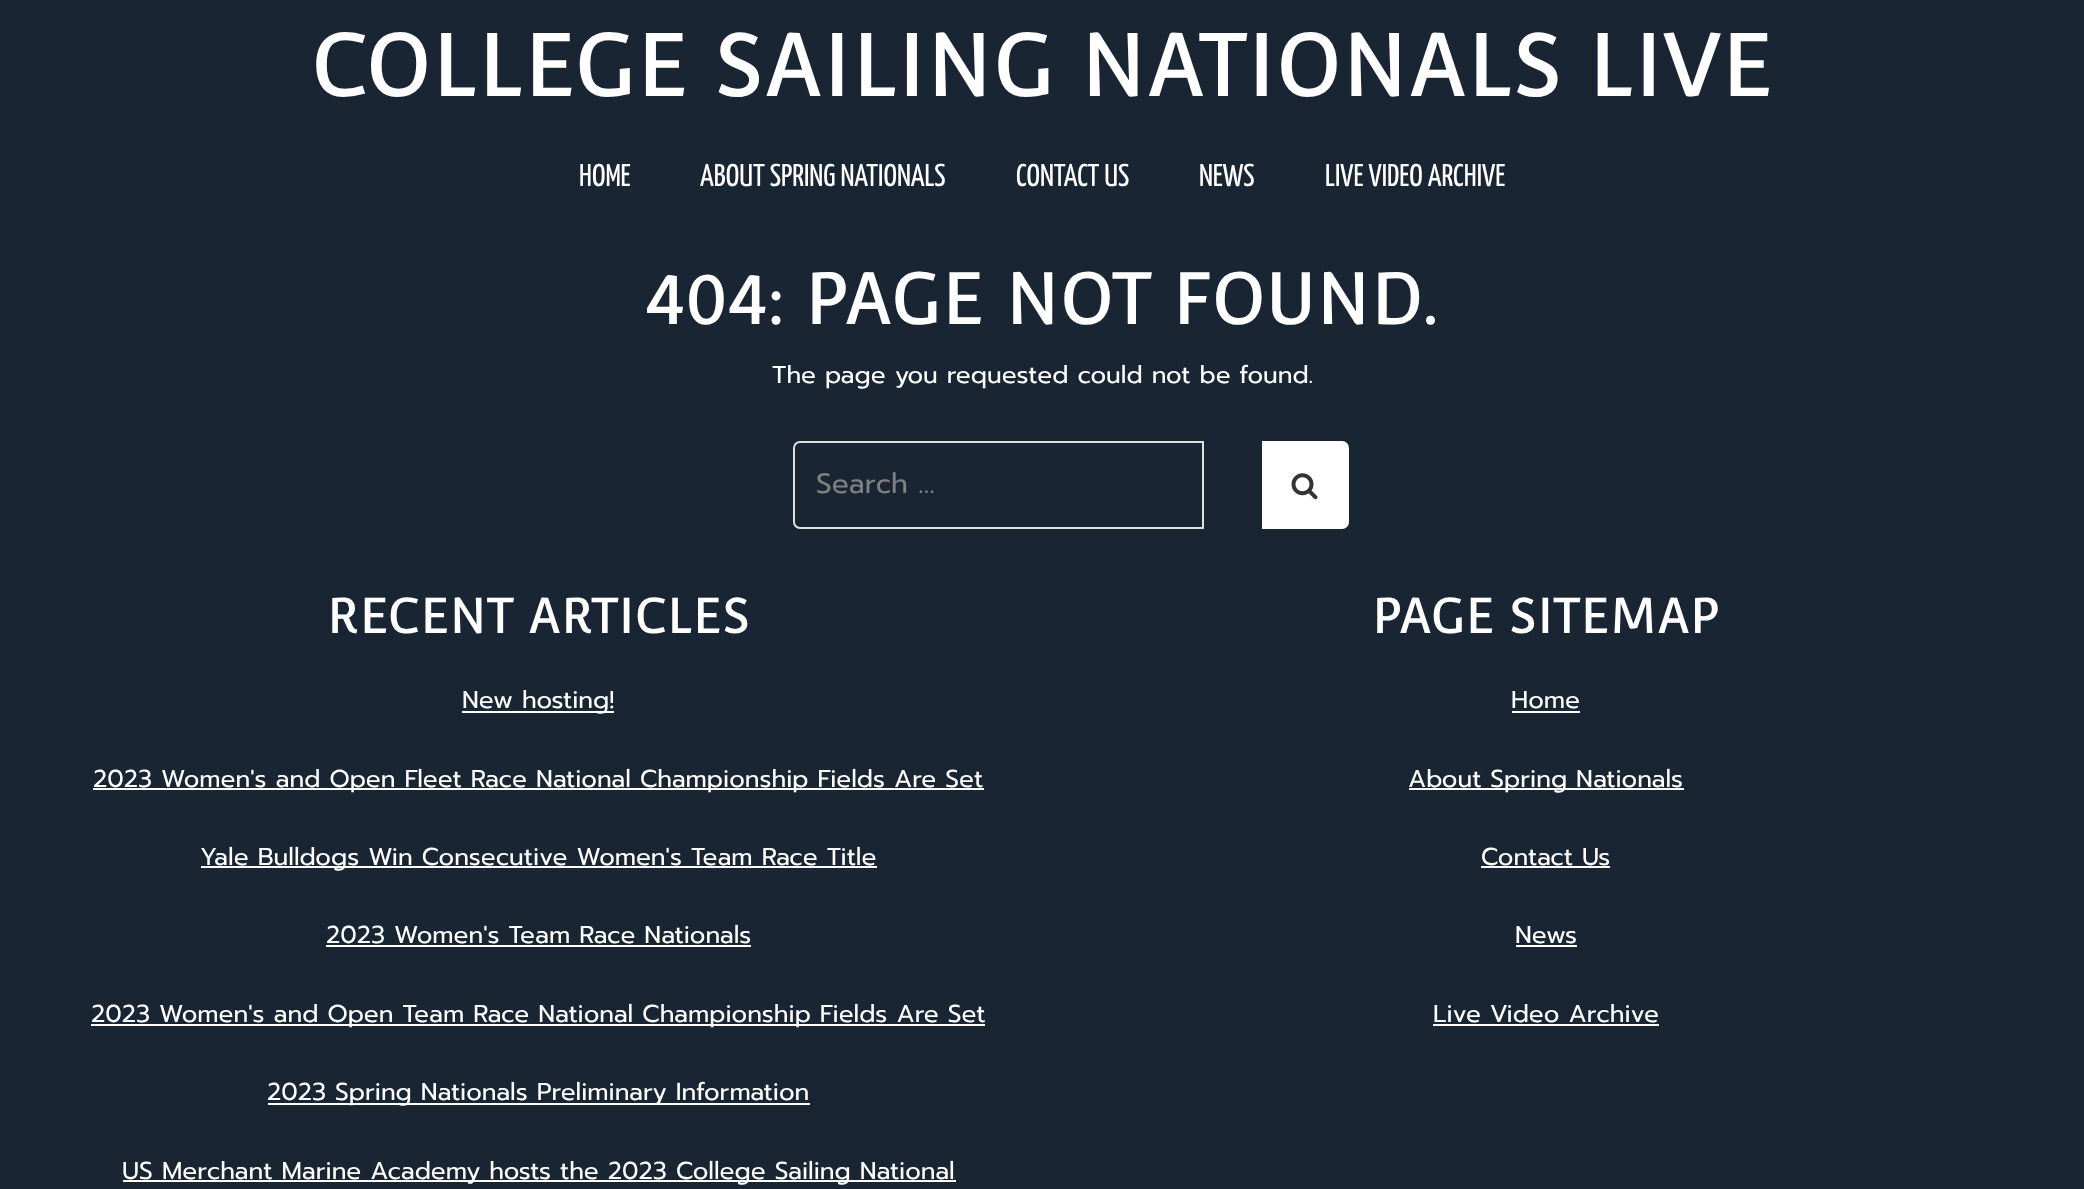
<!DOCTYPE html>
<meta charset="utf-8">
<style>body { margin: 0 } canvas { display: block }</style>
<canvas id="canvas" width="2084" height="1189"></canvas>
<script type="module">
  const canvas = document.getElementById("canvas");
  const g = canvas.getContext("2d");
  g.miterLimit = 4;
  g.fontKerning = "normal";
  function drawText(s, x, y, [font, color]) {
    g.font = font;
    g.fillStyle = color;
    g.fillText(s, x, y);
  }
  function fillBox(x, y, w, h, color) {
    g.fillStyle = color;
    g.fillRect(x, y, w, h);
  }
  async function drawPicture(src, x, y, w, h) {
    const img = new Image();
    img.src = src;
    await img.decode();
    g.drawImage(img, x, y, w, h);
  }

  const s1 = ["87.5px Convergence", "#FFFFFF"];
  const s2 = ["31.5px Yanone Kaffeesatz", "#FFFFFF"];
  const s3 = ["71.75px Convergence", "#FFFFFF"];
  const s4 = ["24.5px Prompt", "#FFFFFF"];
  const s5 = ["28px Prompt", "#808080"];
  const s6 = ["49px Convergence", "#FFFFFF"];

  fillBox(0, 0, 2084, 1189, "#1A2533");
  drawText("COLLEGE SAILING NATIONALS LIVE", 311, 96, s1);
  drawText("HOME", 579, 186, s2);
  drawText("ABOUT SPRING NATIONALS", 700, 186, s2);
  drawText("CONTACT US", 1016, 186, s2);
  drawText("NEWS", 1199, 186, s2);
  drawText("LIVE VIDEO ARCHIVE", 1325, 186, s2);
  drawText("404: PAGE NOT FOUND.", 645, 324, s3);
  drawText("The page you requested could not be found.", 772, 383, s4);
  g.beginPath();
  g.roundRect(794, 442, 409, 86, [6, 0, 0, 6]);
  g.strokeStyle = "#DFDFDF";
  g.lineWidth = 2;
  g.stroke();
  drawText("Search …", 816, 493, s5);
  g.fillStyle = "#FFFFFF";
  g.beginPath();
  g.roundRect(1262, 441, 87, 88, [0, 7, 7, 0]);
  g.fill();
  await drawPicture("pic1.png", 1291, 473, 27, 27);
  drawText("RECENT ARTICLES", 327, 633, s6);
  fillBox(462, 711, 152, 2, "#FFFFFF");
  drawText("New hosting!", 462, 708, s4);
  fillBox(93, 788, 891, 2, "#FFFFFF");
  drawText("2023 Women's and Open Fleet Race National Championship Fields Are Set", 93, 787, s4);
  fillBox(201, 866, 676, 2, "#FFFFFF");
  drawText("Yale Bulldogs Win Consecutive Women's Team Race Title", 200, 865, s4);
  drawText("2023 Women's Team Race Nationals", 326, 943, s4);
  fillBox(326, 945, 425, 2, "#FFFFFF");
  fillBox(91, 1024, 894, 2, "#FFFFFF");
  drawText("2023 Women's and Open Team Race National Championship Fields Are Set", 91, 1022, s4);
  fillBox(268, 1103, 542, 2, "#FFFFFF");
  drawText("2023 Spring Nationals Preliminary Information", 267, 1100, s4);
  fillBox(123, 1180, 833, 2, "#FFFFFF");
  drawText("US Merchant Marine Academy hosts the 2023 College Sailing National", 122, 1179, s4);
  drawText("PAGE SITEMAP", 1372, 633, s6);
  drawText("Home", 1511, 708, s4);
  fillBox(1512, 711, 68, 2, "#FFFFFF");
  fillBox(1409, 788, 275, 2, "#FFFFFF");
  drawText("About Spring Nationals", 1408, 787, s4);
  drawText("Contact Us", 1481, 865, s4);
  fillBox(1481, 866, 129, 2, "#FFFFFF");
  drawText("News", 1515, 943, s4);
  fillBox(1516, 945, 61, 2, "#FFFFFF");
  drawText("Live Video Archive", 1433, 1022, s4);
  fillBox(1433, 1024, 226, 2, "#FFFFFF");
</script>
